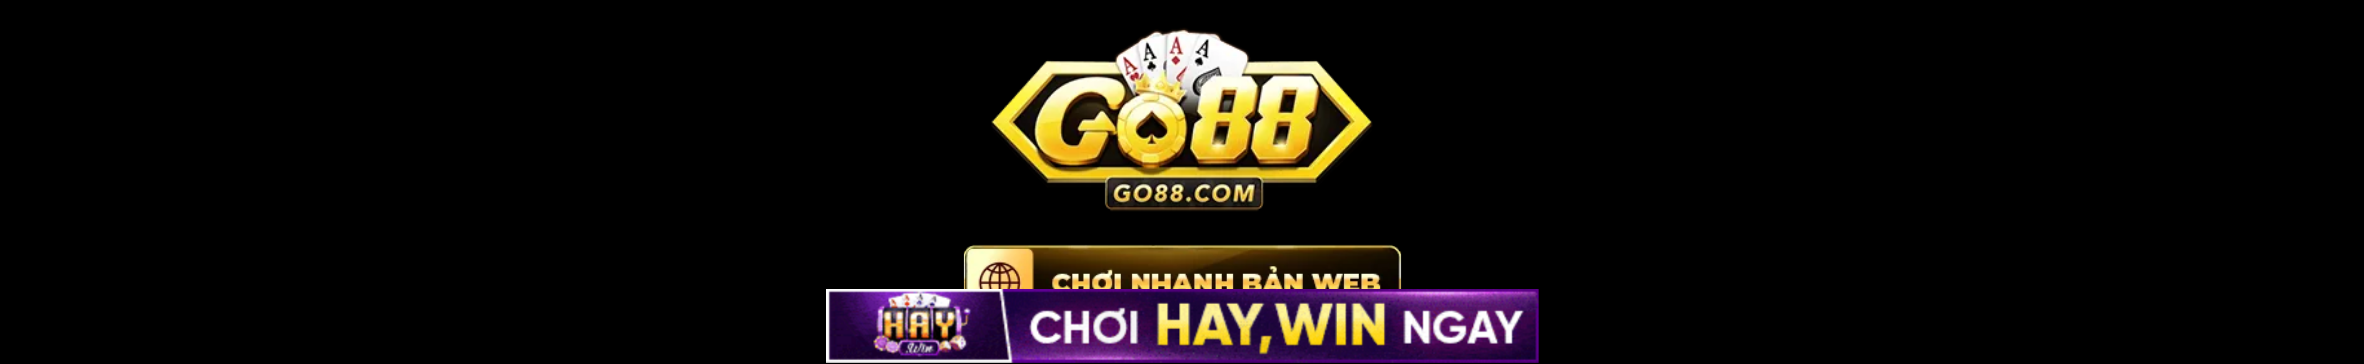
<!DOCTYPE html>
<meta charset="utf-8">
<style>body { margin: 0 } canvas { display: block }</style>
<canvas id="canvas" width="2364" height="364"></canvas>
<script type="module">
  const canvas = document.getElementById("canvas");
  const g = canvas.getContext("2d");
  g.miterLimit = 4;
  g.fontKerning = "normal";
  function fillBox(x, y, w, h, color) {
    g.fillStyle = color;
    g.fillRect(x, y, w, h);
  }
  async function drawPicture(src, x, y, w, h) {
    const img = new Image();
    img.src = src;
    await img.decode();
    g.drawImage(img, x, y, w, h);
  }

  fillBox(0, 0, 2364, 364, "#000000");
  await drawPicture("pic1.png", 991, 27, 382, 185);
  await drawPicture("pic2.png", 963, 244, 439, 45);
  await drawPicture("pic3.png", 826, 289, 713, 74);
</script>
